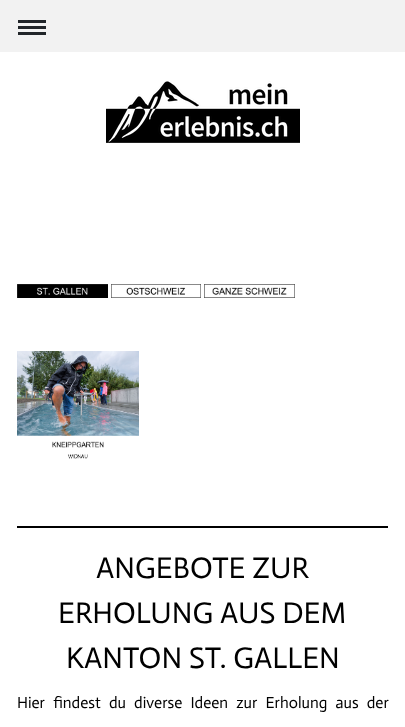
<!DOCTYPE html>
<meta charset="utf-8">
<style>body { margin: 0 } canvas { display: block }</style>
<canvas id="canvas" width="405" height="727"></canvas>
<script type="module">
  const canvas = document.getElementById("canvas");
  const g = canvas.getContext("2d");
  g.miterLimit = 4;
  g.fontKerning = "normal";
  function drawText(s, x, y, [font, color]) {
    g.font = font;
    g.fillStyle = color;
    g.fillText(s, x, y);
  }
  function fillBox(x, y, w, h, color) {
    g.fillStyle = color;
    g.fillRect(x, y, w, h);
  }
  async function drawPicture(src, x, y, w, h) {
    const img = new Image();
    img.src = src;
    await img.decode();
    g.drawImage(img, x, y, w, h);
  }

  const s1 = ["30px Actor", "#000000"];
  const s2 = ["16px Actor", "#000000"];

  fillBox(0, 0, 405, 727, "#FFFFFF");
  fillBox(0, 0, 405, 52, "#F2F2F2");
  fillBox(18, 26, 28, 3, "#212529");
  fillBox(18, 20, 28, 3, "#212529");
  fillBox(18, 32, 28, 3, "#212529");
  await drawPicture("pic1.png", 106, 81, 194, 62);
  await drawPicture("pic2.png", 17, 284, 91, 14);
  await drawPicture("pic3.png", 111, 284, 90, 14);
  await drawPicture("pic4.png", 204, 284, 91, 14);
  await drawPicture("pic5.png", 17, 351, 122, 108);
  fillBox(17, 526, 371, 2, "#000000");
  drawText("ANGEBOTE ZUR", 96, 578, s1);
  drawText("ERHOLUNG AUS DEM", 58, 623, s1);
  drawText("KANTON ST. GALLEN", 66, 668, s1);
  g.wordSpacing = "4.5px";
  drawText("Hier findest du diverse Ideen zur Erholung aus der", 17, 708, s2);
</script>
